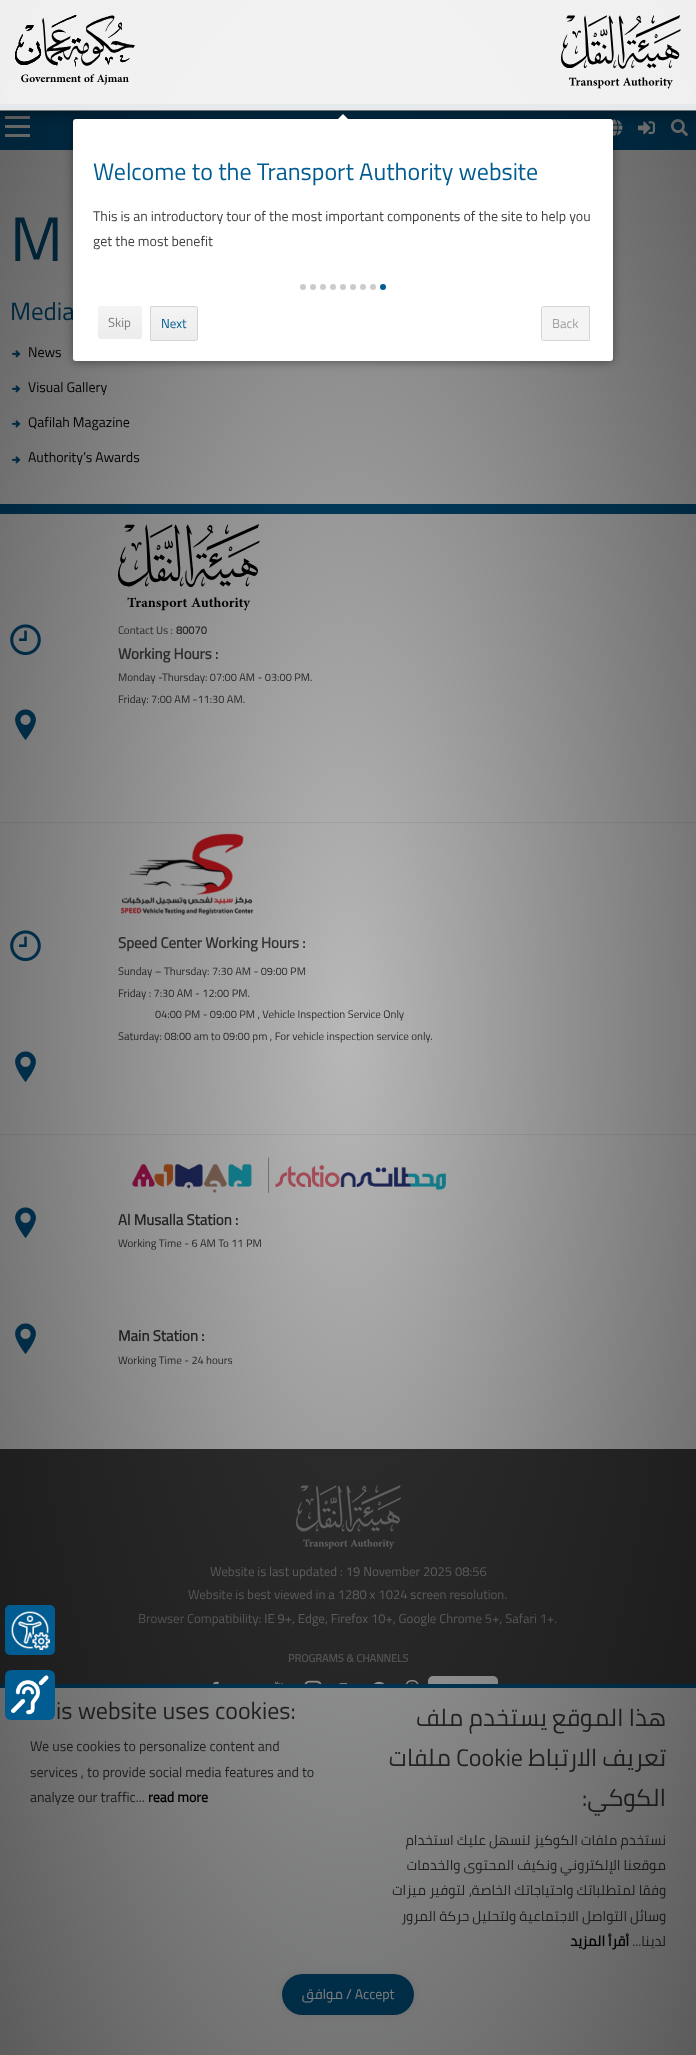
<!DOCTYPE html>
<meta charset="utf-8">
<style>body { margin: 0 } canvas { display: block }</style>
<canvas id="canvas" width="696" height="2055"></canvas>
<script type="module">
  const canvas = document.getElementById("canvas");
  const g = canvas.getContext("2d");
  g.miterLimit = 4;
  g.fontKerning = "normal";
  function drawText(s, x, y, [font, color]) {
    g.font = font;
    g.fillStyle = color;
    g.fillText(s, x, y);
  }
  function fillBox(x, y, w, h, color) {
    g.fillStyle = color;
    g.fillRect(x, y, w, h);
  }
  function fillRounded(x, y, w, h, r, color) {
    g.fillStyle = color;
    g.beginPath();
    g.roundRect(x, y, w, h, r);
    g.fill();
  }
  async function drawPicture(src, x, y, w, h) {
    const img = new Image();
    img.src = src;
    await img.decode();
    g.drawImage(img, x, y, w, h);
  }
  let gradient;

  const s1 = ["63px Cairo", "#05517E"];
  const s2 = ["25px Cairo", "#015C92"];
  const s3 = ["14px Cairo", "#000000"];
  const s4 = ["11px Cairo", "#4E4E4E"];
  const s5 = ["bold 11px Cairo", "#4E4E4E"];
  const s6 = ["bold 15px Cairo", "#4E4E4E"];
  const s7 = ["11px Cairo", "#3E3E3E"];
  const s8 = ["bold 15px Cairo", "#3E3E3E"];
  const s9 = ["13px Cairo", "#9E9E9E"];
  const s10 = ["bold 11px Cairo", "#919191"];
  const s11 = ["24px Cairo", "#3E3E3E"];
  const s12 = ["14px Cairo", "#3E3E3E"];
  const s13 = ["bold 14px Cairo", "#000000"];
  const s14 = ["14px Cairo", "#FFFFFF"];
  const s15 = ["24px Cairo", "#015C92"];
  const s16 = ["13px Cairo", "#7A7A7A"];
  const s17 = ["13px Cairo", "#015C92"];

  fillBox(0, 0, 696, 2055, "#FFFFFF");
  fillBox(0, 104, 696, 46, "#015C92");
  fillBox(5, 116, 25, 3, "#FFFFFF");
  fillBox(5, 125, 25, 3, "#FFFFFF");
  fillBox(5, 134, 25, 3, "#FFFFFF");
  await drawPicture("pic3.png", 611, 119, 12, 17);
  await drawPicture("pic4.png", 638, 121, 17, 14);
  await drawPicture("pic5.png", 671, 119, 17, 18);
  drawText("M", 10, 261, s1);
  drawText("Media", 10, 320, s2);
  await drawPicture("pic6.png", 12, 350, 9, 8);
  drawText("News", 28, 357, s3);
  await drawPicture("pic6.png", 12, 385, 9, 8);
  drawText("Visual Gallery", 28, 392, s3);
  await drawPicture("pic6.png", 12, 420, 9, 8);
  drawText("Qafilah Magazine", 28, 427, s3);
  await drawPicture("pic6.png", 12, 456, 9, 8);
  drawText("Authority’s Awards", 28, 462, s3);
  fillBox(0, 1449, 696, 235, "#444444");
  fillBox(0, 504, 696, 10, "#015C92");
  fillBox(0, 822, 696, 1, "#EEEEEE");
  await drawPicture("pic7.png", 118, 524, 142, 87);
  await drawPicture("pic8.png", 10, 624, 31, 32);
  drawText("Contact Us :", 118, 634, s4);
  drawText("80070", 176, 634, s5);
  drawText("Working Hours :", 118, 659, s6);
  drawText("Monday -Thursday: 07:00 AM - 03:00 PM.", 118, 681, s7);
  drawText("Friday: 7:00 AM -11:30 AM.", 118, 703, s7);
  await drawPicture("pic9.png", 15, 709, 21, 31);
  fillBox(0, 1134, 696, 1, "#EEEEEE");
  await drawPicture("pic10.png", 120, 833, 134, 82);
  await drawPicture("pic8.png", 10, 930, 31, 32);
  drawText("Speed Center Working Hours :", 118, 948, s6);
  drawText("Sunday – Thursday: 7:30 AM - 09:00 PM", 118, 975, s7);
  drawText("Friday : 7:30 AM - 12:00 PM.", 118, 997, s7);
  drawText("04:00 PM - 09:00 PM , Vehicle Inspection Service Only", 155, 1018, s7);
  drawText("Saturday: 08:00 am to 09:00 pm , For vehicle inspection service only.", 118, 1040, s7);
  await drawPicture("pic9.png", 15, 1051, 21, 31);
  await drawPicture("pic11.png", 132, 1157, 314, 36);
  await drawPicture("pic9.png", 15, 1207, 21, 31);
  drawText("Al Musalla Station :", 118, 1225, s8);
  drawText("Working Time - 6 AM To 11 PM", 118, 1247, s7);
  await drawPicture("pic9.png", 15, 1323, 21, 31);
  drawText("Main Station :", 118, 1341, s8);
  drawText("Working Time - 24 hours", 118, 1364, s7);
  await drawPicture("pic12.png", 296, 1485, 105, 64);
  drawText("Website is last updated : 19 November 2025 08:56", 210, 1576, s9);
  drawText("Website is best viewed in a 1280 x 1024 screen resolution.", 188, 1599, s9);
  drawText("Browser Compatibility: IE 9+, Edge, Firefox 10+, Google Chrome 5+, Safari 1+.", 138, 1623, s9);
  drawText("PROGRAMS & CHANNELS", 288, 1662, s10);
  await drawPicture("pic13.png", 213, 1681, 6, 3);
  await drawPicture("pic14.png", 275, 1681, 9, 3);
  await drawPicture("pic15.png", 304, 1680, 18, 4);
  await drawPicture("pic16.png", 339, 1683, 9, 1);
  await drawPicture("pic17.png", 374, 1681, 11, 3);
  await drawPicture("pic18.png", 405, 1680, 14, 4);
  fillRounded(428, 1676, 70, 52, 5, "#FFFFFF");
  fillBox(0, 1688, 696, 367, "#F7F8F9");
  fillBox(0, 1684, 696, 4, "#015C92");
  drawText("is website uses cookies:", 56, 1719, s11);
  drawText("We use cookies to personalize content and", 30, 1751, s12);
  drawText("services , to provide social media features and to", 30, 1777, s12);
  drawText("analyze our traffic...", 30, 1802, s12);
  drawText("read more", 148, 1802, s13);
  g.direction = "rtl";
  drawText("هذا الموقع يستخدم ملف", 666, 1726, s11);
  drawText("ملفات", 451, 1766, s11);
  g.direction = "ltr";
  drawText("Cookie", 456, 1766, s11);
  g.direction = "rtl";
  drawText("تعريف الارتباط", 666, 1766, s11);
  drawText("الكوكي:", 666, 1806, s11);
  drawText("نستخدم ملفات الكوكيز لنسهل عليك استخدام", 666, 1845, s12);
  drawText("موقعنا الإلكتروني ونكيف المحتوى والخدمات", 666, 1870, s12);
  drawText("وفقا لمتطلباتك واحتياجاتك الخاصة، لتوفير ميزات", 666, 1895, s12);
  drawText("وسائل التواصل الاجتماعية ولتحليل حركة المرور", 666, 1921, s12);
  drawText("أقرأ المزيد", 629, 1946, s13);
  drawText("لدينا...", 666, 1946, s12);
  g.fillStyle = "rgba(187, 187, 187, 0.28)";
  g.filter = "blur(5px)";
  g.beginPath();
  g.roundRect(282, 1974, 132, 41, 20.5);
  g.fill();
  g.filter = "none";
  fillRounded(282, 1974, 132, 41, 20.5, "#015C92");
  drawText("موافق", 343, 1999, s14);
  g.direction = "ltr";
  drawText("/ Accept", 346, 1999, s14);
  gradient = g.createRadialGradient(348, 348.09, 0, 348, 348.09, 492);
  gradient.addColorStop(0, "rgba(0, 0, 0, 0.28)");
  gradient.addColorStop(1, "rgba(0, 0, 0, 0.63)");
  g.fillStyle = gradient;
  g.beginPath();
  g.rect(0, 0, 696, 2055);
  g.save();
  g.clip();
  g.scale(1, 1453 / 492);
  g.fillRect(0, 0, 696, 696);
  g.restore();
  g.save();
  g.beginPath();
  g.rect(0, 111, 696, 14);
  g.clip();
  g.fillStyle = "rgba(0, 0, 0, 0.4)";
  g.filter = "blur(7.5px)";
  g.beginPath();
  g.roundRect(-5, -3, 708, 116, 4);
  g.fill();
  g.filter = "none";
  g.restore();
  g.fillStyle = "rgba(255, 255, 255, 0.9)";
  g.beginPath();
  g.rect(-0.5, -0.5, 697, 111);
  g.fill();
  g.strokeStyle = "#737576";
  g.stroke();
  g.fillStyle = "rgba(0, 0, 0, 0.4)";
  g.filter = "blur(5px)";
  g.beginPath();
  g.roundRect(73, 120, 540, 242, 3);
  g.fill();
  g.filter = "none";
  fillRounded(73, 119, 540, 242, 3, "#FFFFFF");
  g.beginPath();
  g.moveTo(348, 119);
  g.lineTo(338, 119);
  g.lineTo(343, 114);
  g.closePath();
  g.fill();
  drawText("Welcome to the Transport Authority website", 93, 180, s15);
  drawText("This is an introductory tour of the most important components of the site to help you", 93, 221, s12);
  drawText("get the most benefit", 93, 246, s12);
  g.fillStyle = "#CCCCCC";
  g.beginPath();
  g.arc(303, 287, 3, 0, Math.PI * 2);
  g.fill();
  g.beginPath();
  g.arc(313, 287, 3, 0, Math.PI * 2);
  g.fill();
  g.beginPath();
  g.arc(323, 287, 3, 0, Math.PI * 2);
  g.fill();
  g.beginPath();
  g.arc(333, 287, 3, 0, Math.PI * 2);
  g.fill();
  g.beginPath();
  g.arc(343, 287, 3, 0, Math.PI * 2);
  g.fill();
  g.beginPath();
  g.arc(353, 287, 3, 0, Math.PI * 2);
  g.fill();
  g.beginPath();
  g.arc(363, 287, 3, 0, Math.PI * 2);
  g.fill();
  g.beginPath();
  g.arc(373, 287, 3, 0, Math.PI * 2);
  g.fill();
  g.fillStyle = "#015C92";
  g.beginPath();
  g.arc(383, 287, 3, 0, Math.PI * 2);
  g.fill();
  gradient = g.createLinearGradient(120, 306, 120, 339);
  gradient.addColorStop(0, "#F4F4F4");
  gradient.addColorStop(1, "#ECECEC");
  g.fillStyle = gradient;
  g.beginPath();
  g.roundRect(98, 306, 44, 33, 2.5);
  g.fill();
  drawText("Skip", 108, 327, s16);
  gradient = g.createLinearGradient(174, 307, 174, 340);
  gradient.addColorStop(0, "#F4F4F4");
  gradient.addColorStop(1, "#ECECEC");
  g.fillStyle = gradient;
  g.fillRect(151, 307, 47, 33);
  g.beginPath();
  g.roundRect(150.5, 306.5, 47, 34, [0, 2, 2, 0]);
  g.strokeStyle = "#D4D4D4";
  g.stroke();
  drawText("Next", 161, 328, s17);
  g.fillStyle = "#F4F4F4";
  g.beginPath();
  g.roundRect(541.5, 306.5, 48, 34, [2, 0, 0, 2]);
  g.fill();
  g.stroke();
  drawText("Back", 552, 328, s9);
  await drawPicture("pic1.png", 15, 15, 120, 70);
  await drawPicture("pic2.png", 561, 15, 120, 74);
  fillRounded(5, 1605, 50, 50, 5, "#015C92");
  await drawPicture("pic19.png", 11, 1611, 39, 39);
  fillRounded(5, 1670, 50, 50, 6, "#015C92");
  await drawPicture("pic20.png", 10, 1675, 39, 40);
</script>
